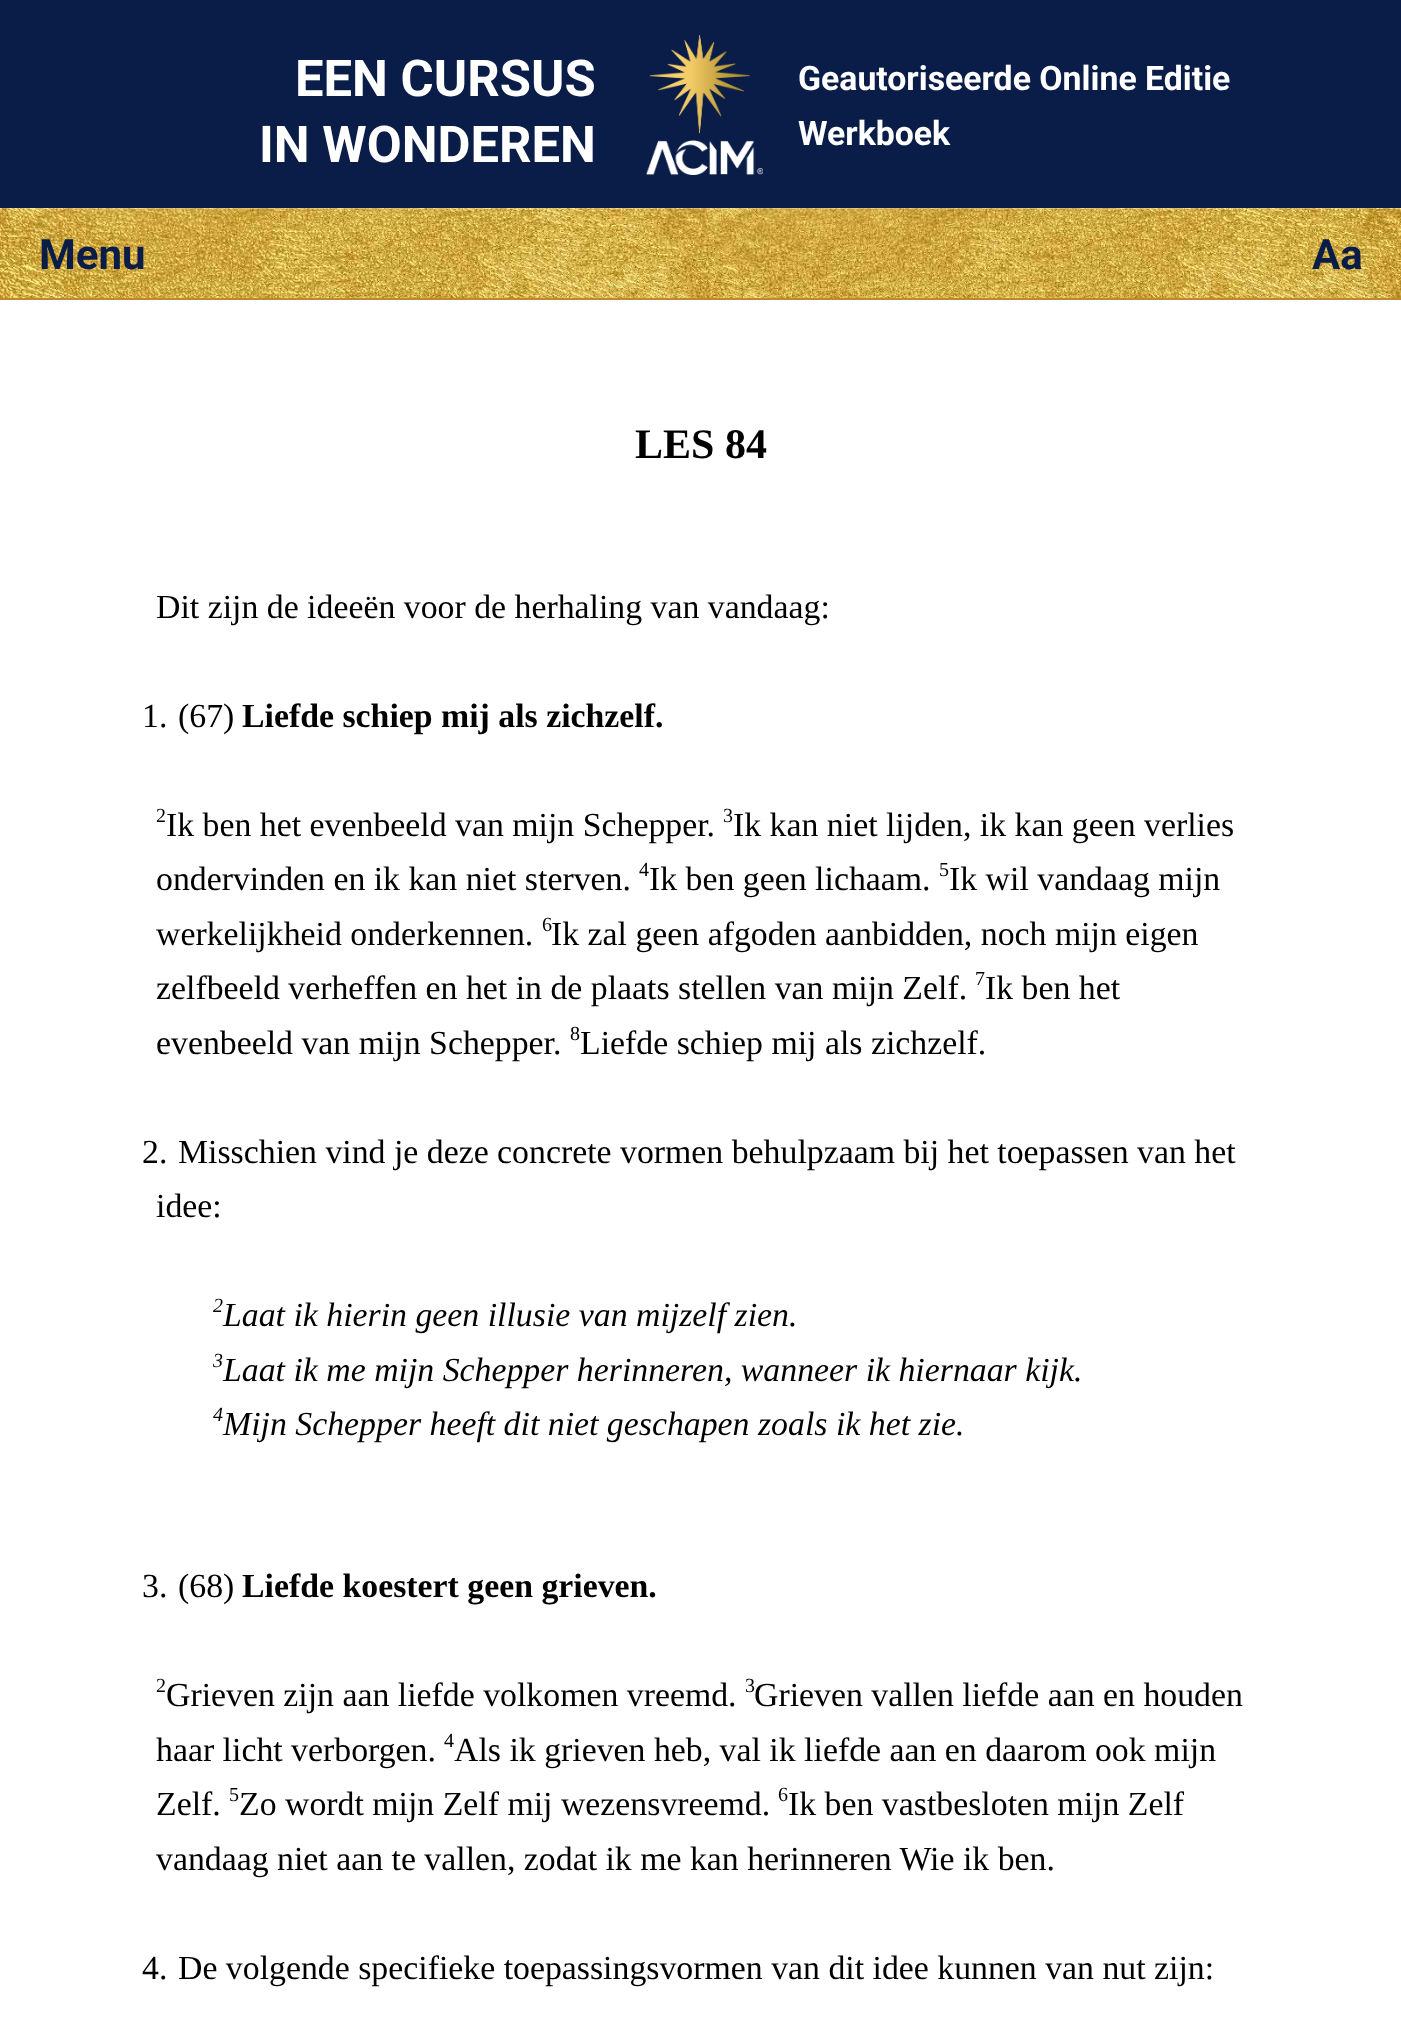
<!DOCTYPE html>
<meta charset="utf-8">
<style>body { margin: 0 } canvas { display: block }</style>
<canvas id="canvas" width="1401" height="2017"></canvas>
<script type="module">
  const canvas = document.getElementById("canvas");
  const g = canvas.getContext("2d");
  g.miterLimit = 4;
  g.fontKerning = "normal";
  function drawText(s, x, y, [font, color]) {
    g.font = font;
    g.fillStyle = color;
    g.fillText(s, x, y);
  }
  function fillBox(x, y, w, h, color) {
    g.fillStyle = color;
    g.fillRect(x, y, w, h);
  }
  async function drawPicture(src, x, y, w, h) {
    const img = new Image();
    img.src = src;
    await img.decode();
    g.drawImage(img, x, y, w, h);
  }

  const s1 = ["bold 50.75px Roboto", "#FFFFFF"];
  const s2 = ["bold 33.8px Roboto", "#FFFFFF"];
  const s3 = ["bold 42px Roboto", "#091D48"];
  const s4 = ["bold 42px Liberation Serif", "#000000"];
  const s5 = ["33.8px Liberation Serif", "#000000"];
  const s6 = ["bold 33.8px Liberation Serif", "#000000"];
  const s7 = ["20px Liberation Serif", "#000000"];
  const s8 = ["italic 20px Liberation Serif", "#000000"];
  const s9 = ["italic 33.8px Liberation Serif", "#000000"];

  fillBox(0, 0, 1401, 2017, "#FFFFFF");
  fillBox(0, 0, 1401, 208, "#091D48");
  drawText("EEN CURSUS", 295, 96, s1);
  drawText("IN WONDEREN", 259, 162, s1);
  await drawPicture("pic1.png", 646, 35, 117, 140);
  drawText("Geautoriseerde Online Editie", 798, 90, s2);
  drawText("Werkboek", 798, 145, s2);
  await drawPicture("pic2.png", 0, 208, 1401, 90);
  fillBox(0, 298, 1401, 2, "#BF8731");
  drawText("Menu", 39, 269, s3);
  drawText("Aa", 1312, 269, s3);
  drawText("LES 84", 635, 458, s4);
  drawText("Dit zijn de ideeën voor de herhaling van vandaag:", 156, 618, s5);
  drawText("1.", 142, 727, s5);
  drawText("(67)", 178, 727, s5);
  drawText("Liefde schiep mij als zichzelf.", 242, 727, s6);
  drawText("2", 156, 822, s7);
  drawText("Ik ben het evenbeeld van mijn Schepper.", 166, 836, s5);
  drawText("3", 723, 822, s7);
  drawText("Ik kan niet lijden, ik kan geen verlies", 733, 836, s5);
  drawText("ondervinden en ik kan niet sterven.", 156, 890, s5);
  drawText("4", 639, 876, s7);
  drawText("Ik ben geen lichaam.", 649, 890, s5);
  drawText("5", 939, 876, s7);
  drawText("Ik wil vandaag mijn", 949, 890, s5);
  drawText("werkelijkheid onderkennen.", 156, 945, s5);
  drawText("6", 542, 931, s7);
  drawText("Ik zal geen afgoden aanbidden, noch mijn eigen", 551, 945, s5);
  drawText("zelfbeeld verheffen en het in de plaats stellen van mijn Zelf.", 156, 999, s5);
  drawText("7", 975, 985, s7);
  drawText("Ik ben het", 985, 999, s5);
  drawText("evenbeeld van mijn Schepper.", 156, 1054, s5);
  drawText("8", 570, 1040, s7);
  drawText("Liefde schiep mij als zichzelf.", 580, 1054, s5);
  drawText("2.", 142, 1163, s5);
  drawText("Misschien vind je deze concrete vormen behulpzaam bij het toepassen van het", 178, 1163, s5);
  drawText("idee:", 156, 1217, s5);
  drawText("2", 213, 1312, s8);
  drawText("Laat ik hierin geen illusie van mijzelf zien.", 223, 1326, s9);
  drawText("3", 213, 1367, s8);
  drawText("Laat ik me mijn Schepper herinneren, wanneer ik hiernaar kijk.", 223, 1381, s9);
  drawText("4", 213, 1421, s8);
  drawText("Mijn Schepper heeft dit niet geschapen zoals ik het zie.", 223, 1435, s9);
  drawText("3.", 142, 1597, s5);
  drawText("(68)", 178, 1597, s5);
  drawText("Liefde koestert geen grieven.", 242, 1597, s6);
  drawText("2", 156, 1692, s7);
  drawText("Grieven zijn aan liefde volkomen vreemd.", 166, 1706, s5);
  drawText("3", 745, 1692, s7);
  drawText("Grieven vallen liefde aan en houden", 754, 1706, s5);
  drawText("haar licht verborgen.", 156, 1761, s5);
  drawText("4", 444, 1747, s7);
  drawText("Als ik grieven heb, val ik liefde aan en daarom ook mijn", 454, 1761, s5);
  drawText("Zelf.", 156, 1815, s5);
  drawText("5", 229, 1801, s7);
  drawText("Zo wordt mijn Zelf mij wezensvreemd.", 239, 1815, s5);
  drawText("6", 778, 1801, s7);
  drawText("Ik ben vastbesloten mijn Zelf", 788, 1815, s5);
  drawText("vandaag niet aan te vallen, zodat ik me kan herinneren Wie ik ben.", 156, 1870, s5);
  drawText("4.", 142, 1979, s5);
  drawText("De volgende specifieke toepassingsvormen van dit idee kunnen van nut zijn:", 178, 1979, s5);
</script>
